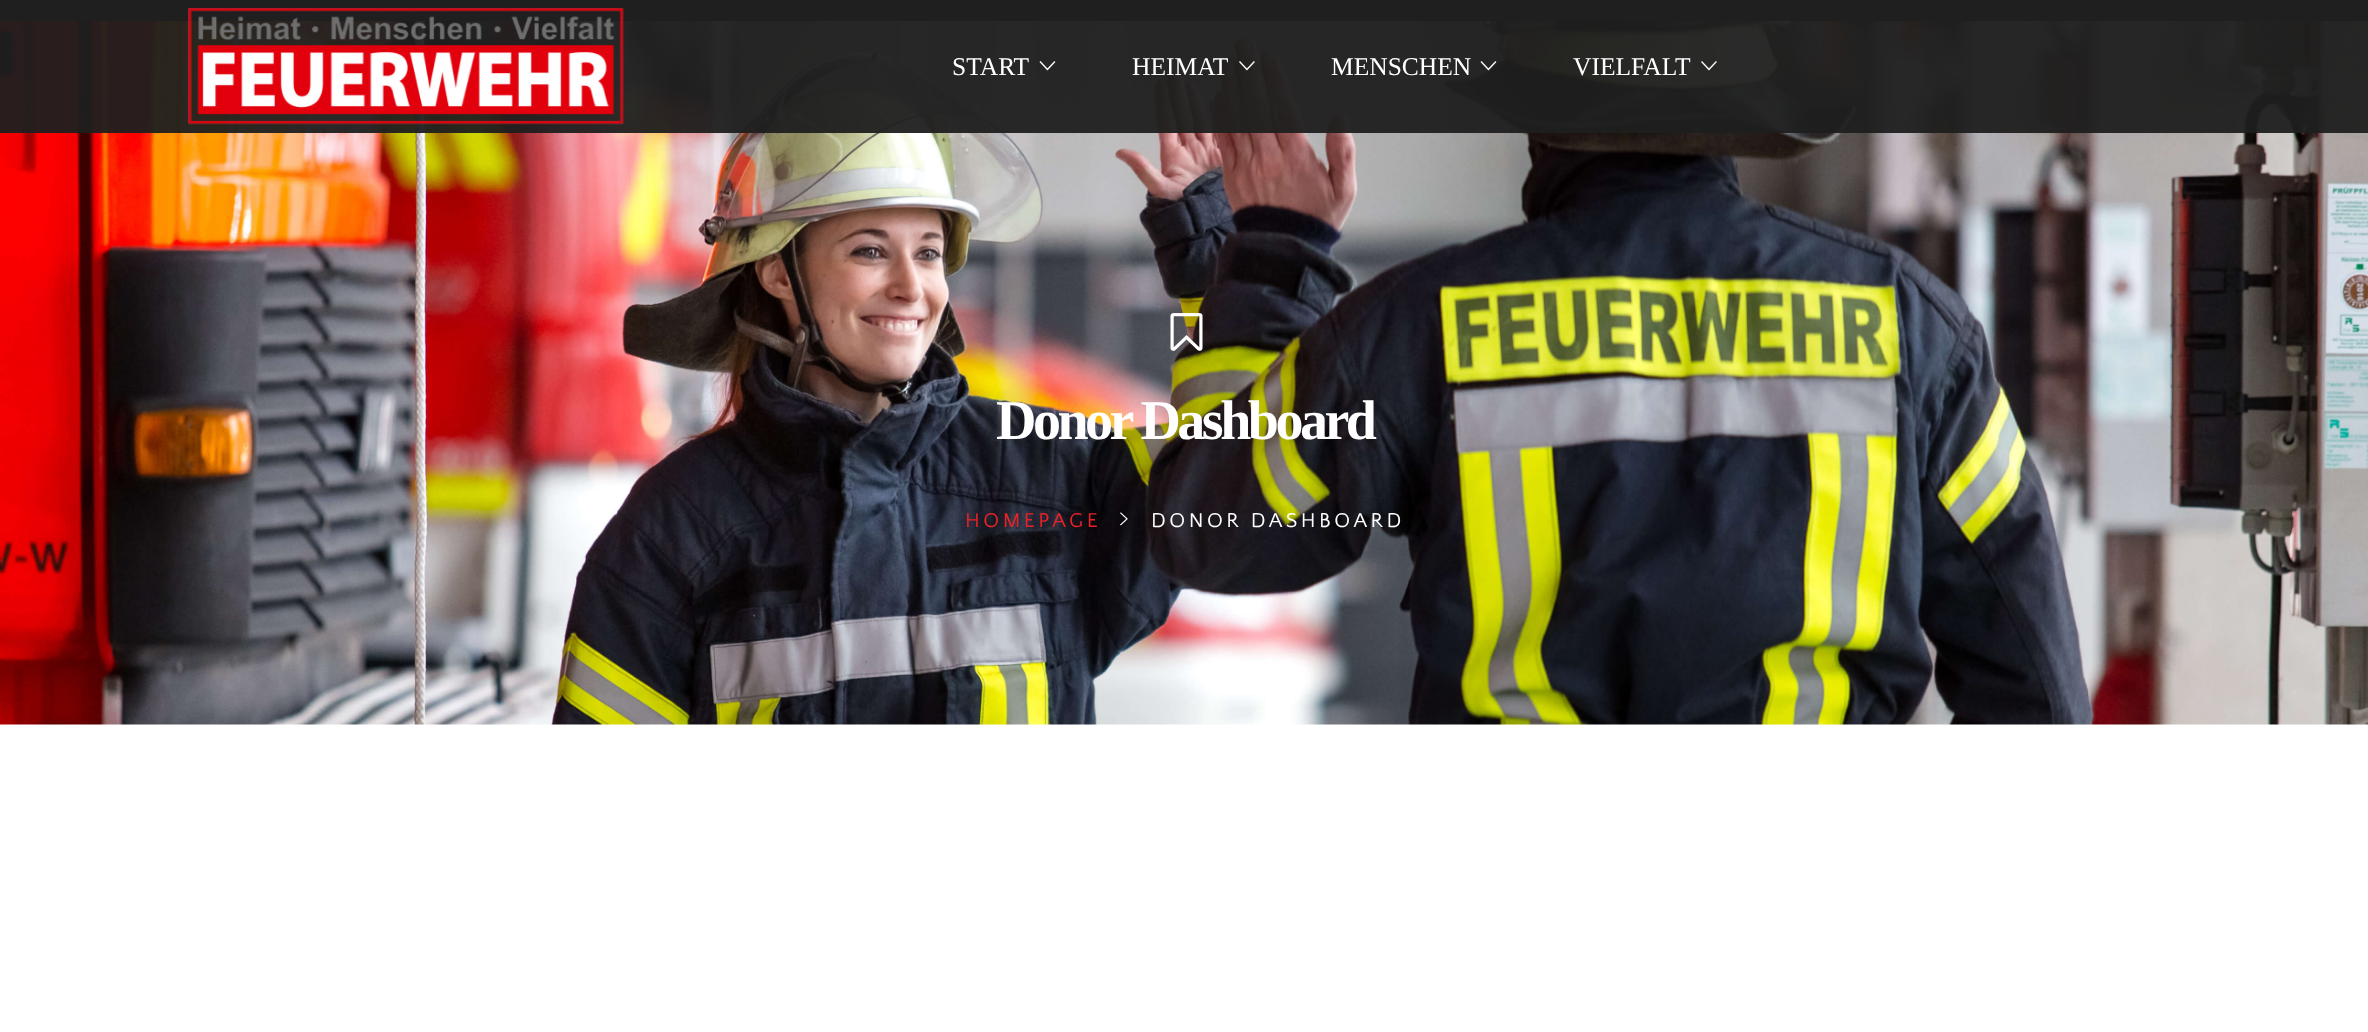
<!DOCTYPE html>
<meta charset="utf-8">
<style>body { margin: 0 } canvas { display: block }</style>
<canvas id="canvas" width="2368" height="1032"></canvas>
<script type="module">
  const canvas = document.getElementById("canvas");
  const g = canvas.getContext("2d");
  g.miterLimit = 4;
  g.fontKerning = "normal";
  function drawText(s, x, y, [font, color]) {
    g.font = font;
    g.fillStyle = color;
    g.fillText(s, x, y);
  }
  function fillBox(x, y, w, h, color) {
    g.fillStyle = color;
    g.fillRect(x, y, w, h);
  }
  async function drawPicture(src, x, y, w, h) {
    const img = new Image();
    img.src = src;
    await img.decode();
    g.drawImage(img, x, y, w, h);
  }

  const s1 = ["25.5px Liberation Serif", "#FFFFFF"];
  const s2 = ["bold 56px Liberation Serif", "#FFFFFF"];
  const s3 = ["21px Quattrocento Sans", "#EC2127"];
  const s4 = ["21px Quattrocento Sans", "#FFFFFF"];

  fillBox(0, 0, 2368, 1032, "#FFFFFF");
  fillBox(0, 0, 2368, 21, "#1F1F1F");
  await drawPicture("pic6.png", 0, 21, 2368, 704);
  fillBox(0, 21, 2368, 112, "rgba(31, 31, 31, 0.95)");
  await drawPicture("pic1.png", 188, 7, 436, 118);
  drawText("START", 952, 75, s1);
  await drawPicture("pic2.png", 1039, 61, 17, 10);
  drawText("HEIMAT", 1132, 75, s1);
  await drawPicture("pic3.png", 1239, 61, 16, 10);
  drawText("MENSCHEN", 1331, 75, s1);
  await drawPicture("pic4.png", 1480, 61, 17, 10);
  drawText("VIELFALT", 1573, 75, s1);
  await drawPicture("pic5.png", 1701, 61, 16, 10);
  await drawPicture("pic7.png", 1170, 313, 33, 38);
  g.letterSpacing = "-3.5px";
  drawText("Donor Dashboard", 996, 439, s2);
  g.letterSpacing = "3.5px";
  drawText("HOMEPAGE", 965, 527, s3);
  await drawPicture("pic8.png", 1120, 512, 8, 14);
  drawText("DONOR DASHBOARD", 1151, 527, s4);
</script>
